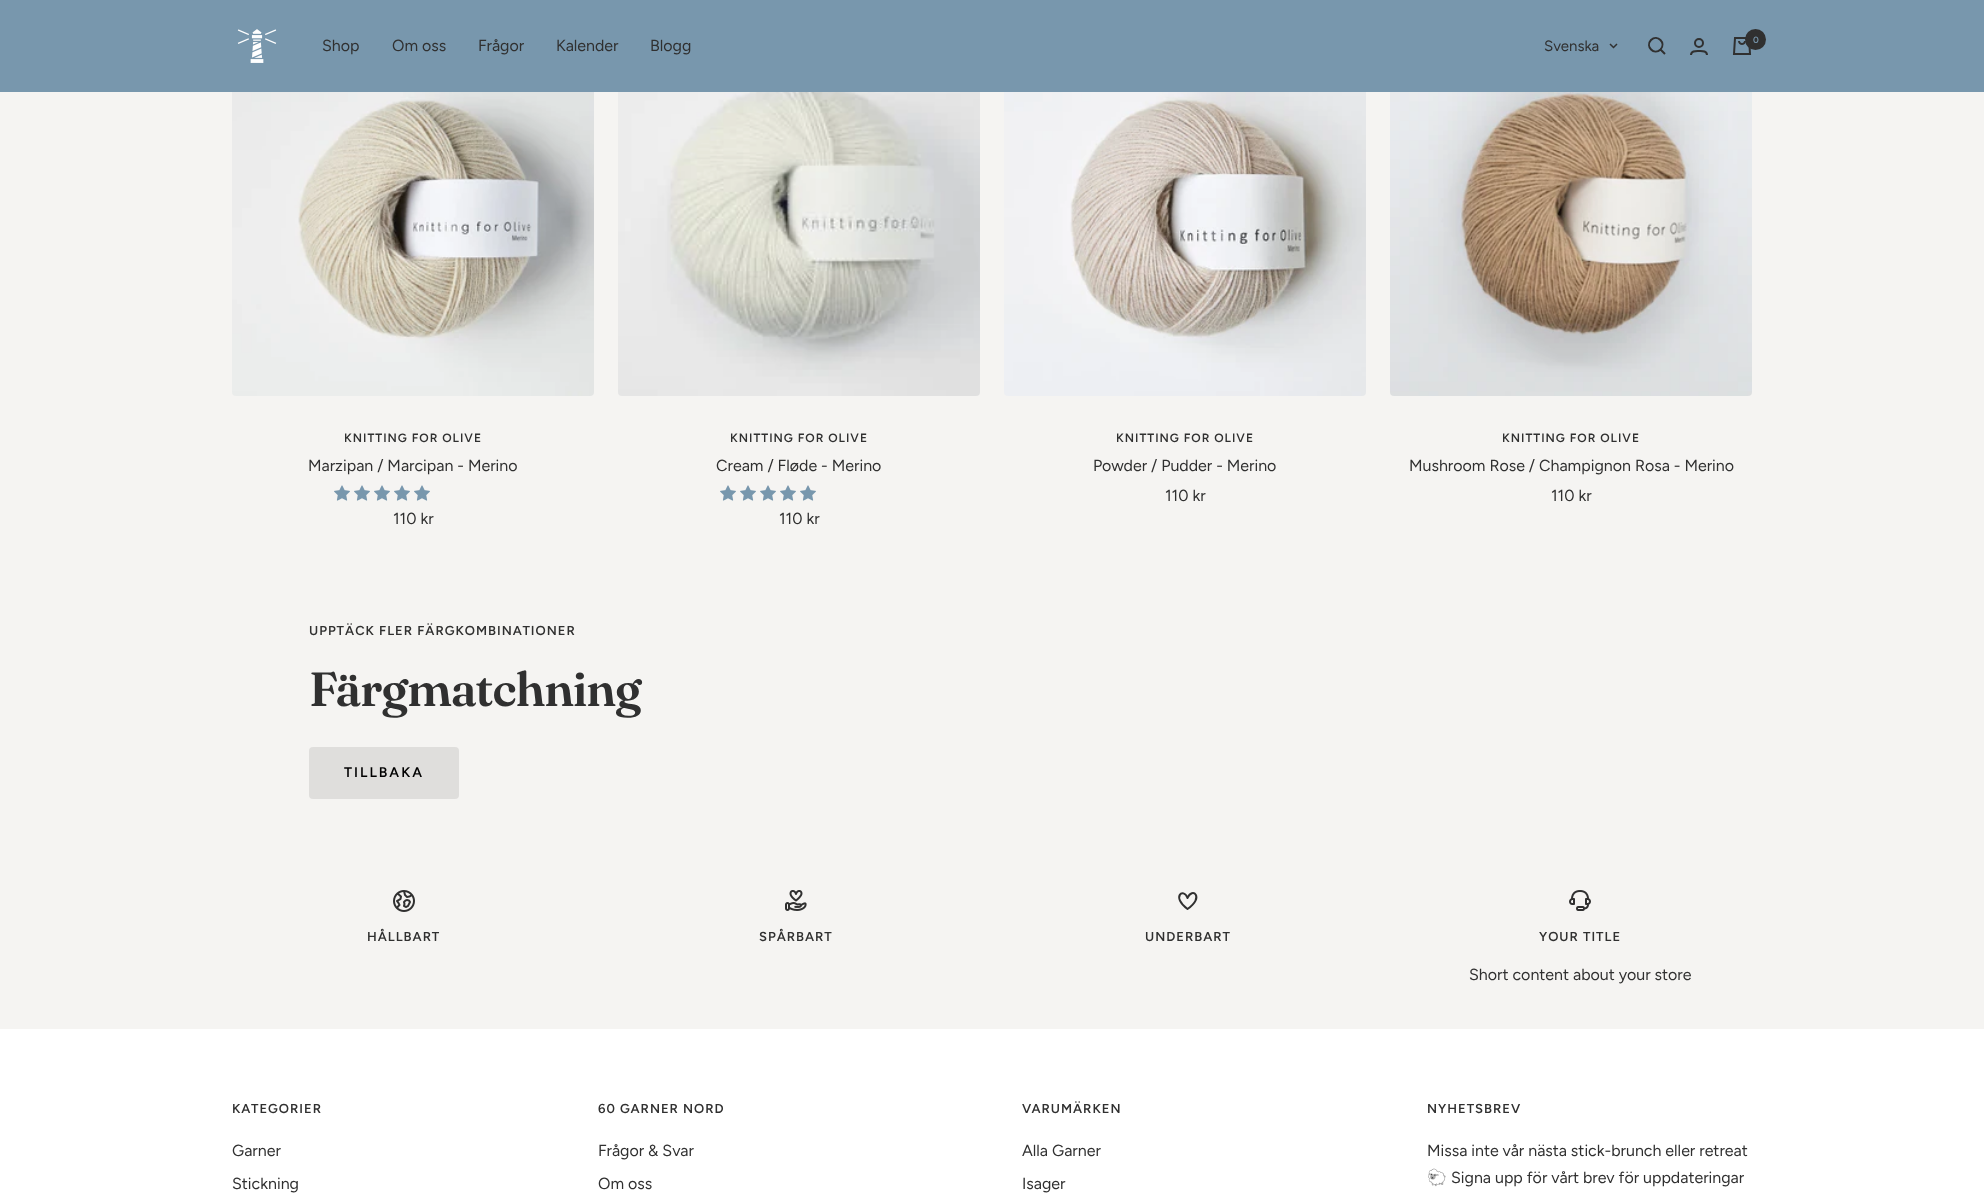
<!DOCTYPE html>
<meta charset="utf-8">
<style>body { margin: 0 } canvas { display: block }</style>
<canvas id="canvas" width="1984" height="1200"></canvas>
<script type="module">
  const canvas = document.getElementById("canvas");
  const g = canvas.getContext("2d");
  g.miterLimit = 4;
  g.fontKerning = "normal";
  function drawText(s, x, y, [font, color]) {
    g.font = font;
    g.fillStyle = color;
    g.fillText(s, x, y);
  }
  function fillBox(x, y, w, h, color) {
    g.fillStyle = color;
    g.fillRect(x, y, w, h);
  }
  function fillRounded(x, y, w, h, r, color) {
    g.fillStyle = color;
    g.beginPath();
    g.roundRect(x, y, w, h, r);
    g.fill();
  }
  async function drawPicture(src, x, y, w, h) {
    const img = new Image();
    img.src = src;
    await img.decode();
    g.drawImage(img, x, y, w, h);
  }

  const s1 = ["16px Figtree", "#303030"];
  const s2 = ["15px Figtree", "#303030"];
  const s3 = ["600 9px Figtree", "#7897AD"];
  const s4 = ["600 12px Figtree", "#303030"];
  const s5 = ["600 13px Figtree", "#303030"];
  const s6 = ["600 48px Fraunces", "#303030"];
  const s7 = ["600 14px Figtree", "#000000"];
  const s8 = ["16px Noto Color Emoji", "#303030"];

  fillBox(0, 0, 1984, 1200, "#F5F4F2");
  fillBox(0, 0, 1984, 92, "#7897AD");
  await drawPicture("pic1.png", 237, 29, 40, 34);
  drawText("Shop", 322, 51, s1);
  drawText("Om oss", 392, 51, s1);
  drawText("Frågor", 478, 51, s1);
  drawText("Kalender", 556, 51, s1);
  drawText("Blogg", 650, 51, s1);
  drawText("Svenska", 1544, 51, s2);
  g.beginPath();
  g.moveTo(1610, 44);
  g.lineTo(1613.5, 47.5);
  g.lineTo(1617, 44);
  g.strokeStyle = "#303030";
  g.lineWidth = 1.5;
  g.stroke();
  g.beginPath();
  g.moveTo(1660.5, 49.5);
  g.bezierCurveTo(1666.5, 43, 1657.5, 34, 1651, 40);
  g.bezierCurveTo(1645, 46.5, 1654, 55.5, 1660.5, 49.5);
  g.closePath();
  g.moveTo(1660.5, 49.5);
  g.lineTo(1665, 54);
  g.lineWidth = 2;
  g.stroke();
  g.beginPath();
  g.arc(1699, 43, 4, 0, Math.PI * 2);
  g.stroke();
  g.beginPath();
  g.moveTo(1691, 55);
  g.bezierCurveTo(1691, 50.5, 1696, 51, 1699, 51);
  g.bezierCurveTo(1702, 51, 1707, 50.5, 1707, 55);
  g.stroke();
  await drawPicture("pic2.png", 1732, 37, 20, 18);
  g.beginPath();
  g.arc(1755.5, 39.5, 10.5, 0, Math.PI * 2);
  g.fill();
  drawText("0", 1753, 43, s3);
  await drawPicture("pic3.png", 232, 92, 362, 304);
  g.letterSpacing = "1px";
  drawText("KNITTING FOR OLIVE", 344, 442, s4);
  g.letterSpacing = "0px";
  drawText("Marzipan / Marcipan - Merino", 308, 471, s1);
  await drawPicture("pic4.png", 334, 485, 16, 16);
  await drawPicture("pic4.png", 354, 485, 16, 16);
  await drawPicture("pic4.png", 374, 485, 16, 16);
  await drawPicture("pic4.png", 394, 485, 16, 16);
  await drawPicture("pic4.png", 414, 485, 16, 16);
  drawText("110 kr", 393, 524, s1);
  await drawPicture("pic5.png", 618, 92, 362, 304);
  g.letterSpacing = "1px";
  drawText("KNITTING FOR OLIVE", 730, 442, s4);
  g.letterSpacing = "0px";
  drawText("Cream / Fløde - Merino", 716, 471, s1);
  await drawPicture("pic4.png", 720, 485, 16, 16);
  await drawPicture("pic4.png", 740, 485, 16, 16);
  await drawPicture("pic4.png", 760, 485, 16, 16);
  await drawPicture("pic4.png", 780, 485, 16, 16);
  await drawPicture("pic4.png", 800, 485, 16, 16);
  drawText("110 kr", 779, 524, s1);
  await drawPicture("pic6.png", 1004, 92, 362, 304);
  g.letterSpacing = "1px";
  drawText("KNITTING FOR OLIVE", 1116, 442, s4);
  g.letterSpacing = "0px";
  drawText("Powder / Pudder - Merino", 1093, 471, s1);
  drawText("110 kr", 1165, 501, s1);
  await drawPicture("pic7.png", 1390, 92, 362, 304);
  g.letterSpacing = "1px";
  drawText("KNITTING FOR OLIVE", 1502, 442, s4);
  g.letterSpacing = "0px";
  drawText("Mushroom Rose / Champignon Rosa - Merino", 1409, 471, s1);
  drawText("110 kr", 1551, 501, s1);
  g.letterSpacing = "1px";
  drawText("UPPTÄCK FLER FÄRGKOMBINATIONER", 309, 635, s5);
  g.letterSpacing = "-1px";
  drawText("Färgmatchning", 309, 706, s6);
  fillRounded(309, 747, 150, 52, 4, "#DFDEDC");
  g.letterSpacing = "2px";
  drawText("TILLBAKA", 344, 777, s7);
  await drawPicture("pic8.png", 393, 890, 22, 22);
  g.letterSpacing = "1px";
  drawText("HÅLLBART", 367, 941, s5);
  await drawPicture("pic9.png", 785, 890, 22, 21);
  drawText("SPÅRBART", 759, 941, s5);
  g.beginPath();
  g.moveTo(1187.5, 909);
  g.bezierCurveTo(1171, 897, 1183.5, 887, 1187.5, 898);
  g.moveTo(1187.5, 909);
  g.bezierCurveTo(1205, 897, 1192, 886.5, 1187.5, 898);
  g.lineCap = "round";
  g.lineJoin = "round";
  g.stroke();
  drawText("UNDERBART", 1145, 941, s5);
  await drawPicture("pic10.png", 1569, 890, 22, 21);
  drawText("YOUR TITLE", 1539, 941, s5);
  g.letterSpacing = "0px";
  drawText("Short content about your store", 1469, 980, s1);
  fillBox(0, 1029, 1984, 171, "#FFFFFF");
  g.letterSpacing = "1px";
  drawText("KATEGORIER", 232, 1113, s5);
  g.letterSpacing = "0px";
  drawText("Garner", 232, 1156, s1);
  drawText("Stickning", 232, 1189, s1);
  g.letterSpacing = "1px";
  drawText("60 GARNER NORD", 598, 1113, s5);
  g.letterSpacing = "0px";
  drawText("Frågor & Svar", 598, 1156, s1);
  drawText("Om oss", 598, 1189, s1);
  g.letterSpacing = "1px";
  drawText("VARUMÄRKEN", 1022, 1113, s5);
  g.letterSpacing = "0px";
  drawText("Alla Garner", 1022, 1156, s1);
  drawText("Isager", 1022, 1189, s1);
  g.letterSpacing = "1px";
  drawText("NYHETSBREV", 1427, 1113, s5);
  g.letterSpacing = "0px";
  drawText("Missa inte vår nästa stick-brunch eller retreat", 1427, 1156, s1);
  drawText("🐑", 1427, 1183, s8);
  drawText("Signa upp för vårt brev för uppdateringar", 1451, 1183, s1);
</script>
